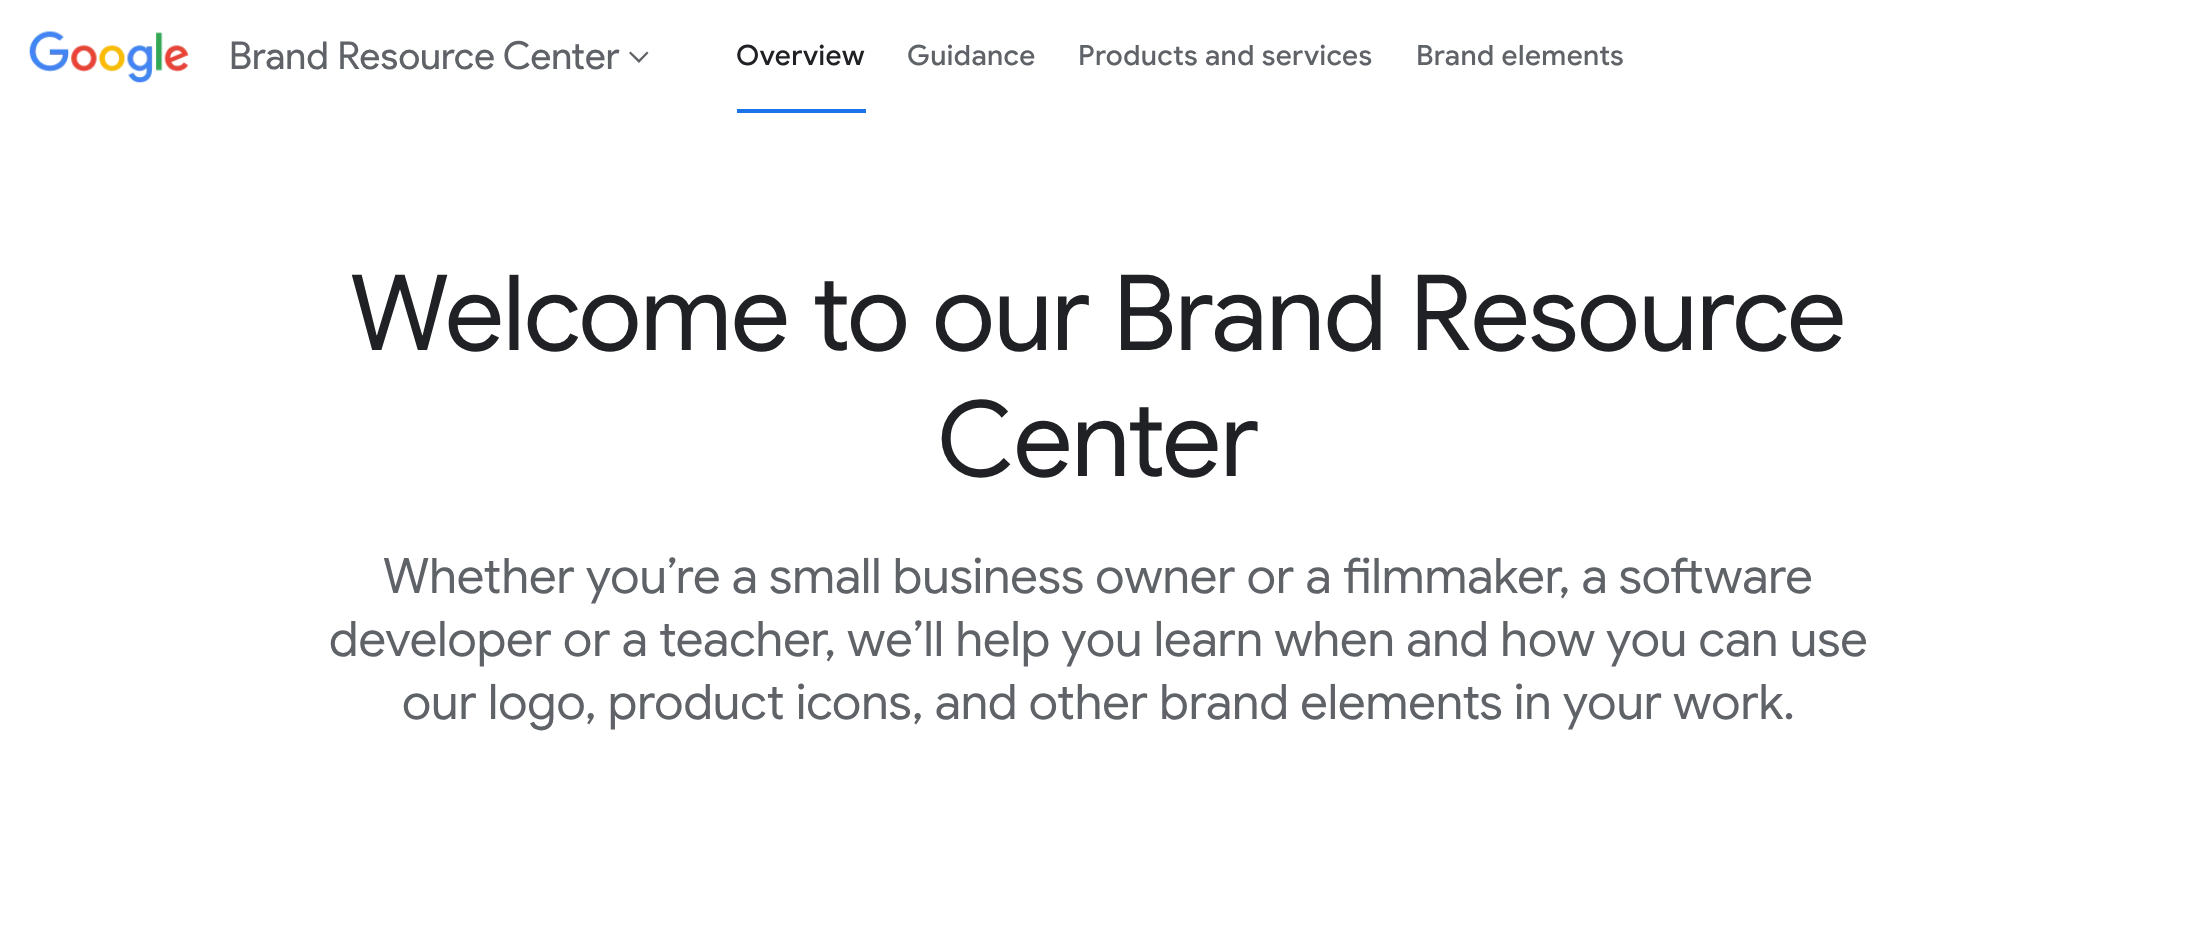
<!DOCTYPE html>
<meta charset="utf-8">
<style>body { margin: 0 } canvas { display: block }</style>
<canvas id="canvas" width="2196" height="935"></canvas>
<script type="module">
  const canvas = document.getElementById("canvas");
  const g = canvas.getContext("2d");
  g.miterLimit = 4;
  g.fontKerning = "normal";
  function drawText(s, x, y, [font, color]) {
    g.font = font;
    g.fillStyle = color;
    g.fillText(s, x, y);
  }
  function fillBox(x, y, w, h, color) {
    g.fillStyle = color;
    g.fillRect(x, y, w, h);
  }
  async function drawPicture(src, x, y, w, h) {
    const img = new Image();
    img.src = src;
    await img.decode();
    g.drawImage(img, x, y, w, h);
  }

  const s1 = ["38.5px Product Sans", "#5F6368"];
  const s2 = ["500 28px Google Sans", "#202124"];
  const s3 = ["500 28px Google Sans", "#5F6368"];
  const s4 = ["105px Google Sans", "#202124"];
  const s5 = ["49px Google Sans", "#5F6368"];

  fillBox(0, 0, 2196, 935, "#FFFFFF");
  await drawPicture("pic1.png", 29, 31, 160, 52);
  g.letterSpacing = "0.2px";
  drawText("Brand Resource Center", 229, 69, s1);
  g.beginPath();
  g.moveTo(630.5, 51.5);
  g.lineTo(629, 53);
  g.lineTo(639, 63);
  g.lineTo(648.5, 53);
  g.lineTo(647, 51.5);
  g.lineTo(639, 59.5);
  g.fill();
  g.letterSpacing = "0.4px";
  drawText("Overview", 736, 65, s2);
  fillBox(737, 109, 129, 4, "#1A73E8");
  drawText("Guidance", 907, 65, s3);
  drawText("Products and services", 1078, 65, s3);
  drawText("Brand elements", 1416, 65, s3);
  g.letterSpacing = "-0.9px";
  drawText("Welcome to our Brand Resource", 350, 350, s4);
  drawText("Center", 937, 476, s4);
  g.letterSpacing = "0px";
  drawText("Whether you’re a small business owner or a filmmaker, a software", 383, 593, s5);
  drawText("developer or a teacher, we’ll help you learn when and how you can use", 329, 656, s5);
  drawText("our logo, product icons, and other brand elements in your work.", 402, 719, s5);
</script>
